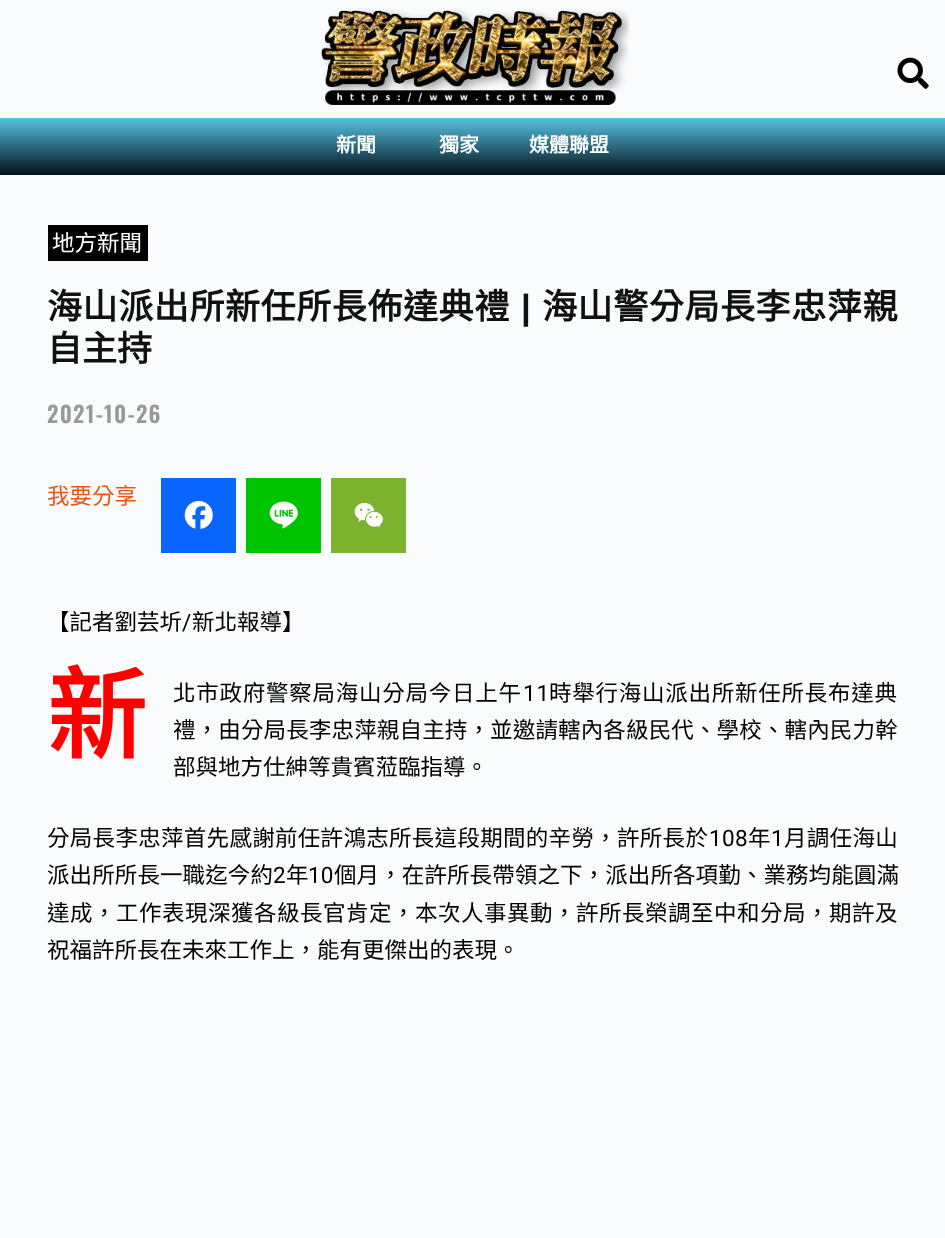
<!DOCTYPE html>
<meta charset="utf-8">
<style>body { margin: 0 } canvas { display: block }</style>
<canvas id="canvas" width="945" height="1238"></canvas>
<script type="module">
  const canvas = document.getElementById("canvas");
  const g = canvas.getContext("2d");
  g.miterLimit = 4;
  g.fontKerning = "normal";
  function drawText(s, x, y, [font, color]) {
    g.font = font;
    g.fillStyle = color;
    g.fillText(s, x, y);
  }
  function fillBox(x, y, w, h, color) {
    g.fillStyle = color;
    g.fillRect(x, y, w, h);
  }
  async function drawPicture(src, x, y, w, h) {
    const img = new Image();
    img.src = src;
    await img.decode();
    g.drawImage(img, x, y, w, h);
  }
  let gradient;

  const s1 = ["bold 20px Noto Sans CJK TC", "#FFFFFF"];
  const s2 = ["22.5px Noto Sans CJK TC", "#FFFFFF"];
  const s3 = ["bold 35px Noto Sans CJK TC", "#111111"];
  const s4 = ["bold 35px Liberation Sans", "#111111"];
  const s5 = ["600 22.5px Oswald", "#999999"];
  const s6 = ["22.5px Noto Sans CJK TC", "#EA5415"];
  const s7 = ["22.5px Noto Sans CJK TC", "#000000"];
  const s8 = ["22.5px Roboto", "#000000"];
  const s9 = ["bold 99px Noto Sans CJK TC", "#FF0000"];

  fillBox(0, 0, 945, 1238, "#FAFBFC");
  await drawPicture("pic1.png", 321, 8, 308, 97);
  await drawPicture("pic2.png", 897, 57, 32, 32);
  gradient = g.createLinearGradient(473, 117, 473, 175);
  gradient.addColorStop(0, "#58C5E5");
  gradient.addColorStop(1, "#031018");
  g.fillStyle = gradient;
  g.fillRect(0, 118, 945, 57);
  drawText("新聞", 336, 152, s1);
  drawText("獨家", 439, 152, s1);
  drawText("媒體聯盟", 529, 152, s1);
  fillBox(48, 225, 100, 36, "#000000");
  drawText("地方新聞", 52, 251, s2);
  g.letterSpacing = "0.6px";
  drawText("海山派出所新任所長佈達典禮", 47, 319, s3);
  drawText("|", 521, 319, s4);
  drawText("海山警分局長李忠萍親", 542, 319, s3);
  g.letterSpacing = "0px";
  drawText("自主持", 47, 361, s3);
  g.letterSpacing = "1.25px";
  drawText("2021-10-26", 47, 423, s5);
  g.letterSpacing = "0px";
  drawText("我要分享", 47, 504, s6);
  fillBox(161, 478, 75, 75, "#0866FF");
  await drawPicture("pic3.png", 184, 500, 29, 29);
  fillBox(246, 478, 75, 75, "#00C300");
  await drawPicture("pic4.png", 269, 501, 29, 28);
  fillBox(331, 478, 75, 75, "#7BB32E");
  await drawPicture("pic5.png", 354, 502, 29, 25);
  drawText("【記者劉芸圻", 47, 630, s7);
  drawText("/", 182, 630, s8);
  drawText("新北報導】", 192, 630, s7);
  drawText("新", 47, 751, s9);
  g.letterSpacing = "0.75px";
  drawText("北市政府警察局海山分局今日上午", 173, 701, s7);
  drawText("11", 523, 701, s8);
  drawText("時舉行海山派出所新任所長布達典", 549, 701, s7);
  g.letterSpacing = "0.15px";
  drawText("禮，由分局長李忠萍親自主持，並邀請轄內各級民代、學校、轄內民力幹", 173, 738, s7);
  g.letterSpacing = "0px";
  drawText("部與地方仕紳等貴賓蒞臨指導。", 173, 775, s7);
  g.letterSpacing = "0.3px";
  drawText("分局長李忠萍首先感謝前任許鴻志所長這段期間的辛勞，許所長於", 47, 846, s7);
  drawText("108", 709, 846, s8);
  drawText("年", 748, 846, s7);
  drawText("1", 771, 846, s8);
  drawText("月調任海山", 784, 846, s7);
  g.letterSpacing = "0.1px";
  drawText("派出所所長一職迄今約", 47, 883, s7);
  drawText("2", 273, 883, s8);
  drawText("年", 286, 883, s7);
  drawText("10", 308, 883, s8);
  drawText("個月，在許所長帶領之下，派出所各項勤、業務均能圓滿", 334, 883, s7);
  g.letterSpacing = "0.5px";
  drawText("達成，工作表現深獲各級長官肯定，本次人事異動，許所長榮調至中和分局，期許及", 47, 921, s7);
  g.letterSpacing = "0px";
  drawText("祝福許所長在未來工作上，能有更傑出的表現。", 47, 958, s7);
</script>
